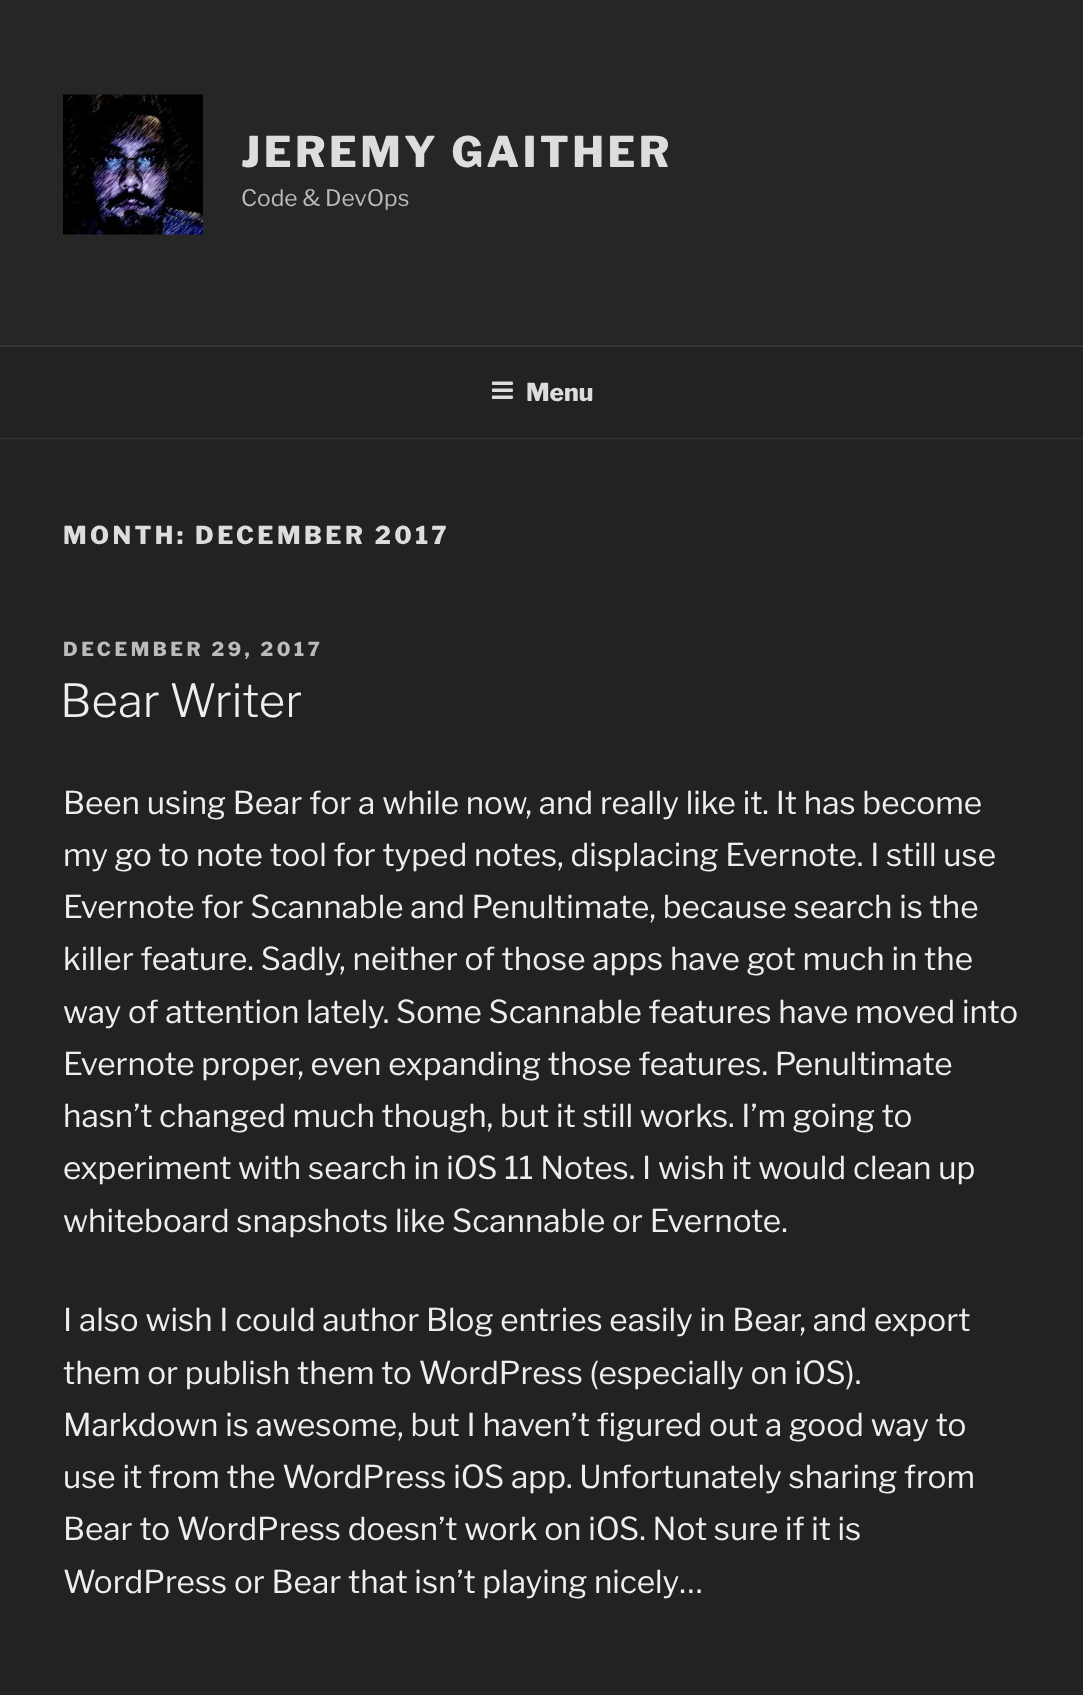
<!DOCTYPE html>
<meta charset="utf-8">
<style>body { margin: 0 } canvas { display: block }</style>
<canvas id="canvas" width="1083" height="1695"></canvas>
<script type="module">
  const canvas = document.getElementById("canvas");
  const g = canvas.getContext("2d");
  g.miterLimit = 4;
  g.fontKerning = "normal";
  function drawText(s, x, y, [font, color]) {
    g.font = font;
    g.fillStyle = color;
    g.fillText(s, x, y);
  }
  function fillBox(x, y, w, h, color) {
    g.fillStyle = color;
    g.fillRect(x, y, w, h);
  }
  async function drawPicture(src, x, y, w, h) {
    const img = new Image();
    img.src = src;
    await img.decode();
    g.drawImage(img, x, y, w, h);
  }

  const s1 = ["100 42px Libre Franklin", "#DDDDDD"];
  const s2 = ["100 22.75px 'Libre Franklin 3'", "#BBBBBB"];
  const s3 = ["100 24.5px Libre Franklin", "#DDDDDD"];
  const s4 = ["100 19.25px Libre Franklin", "#BBBBBB"];
  const s5 = ["100 45.5px 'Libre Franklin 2'", "#EEEEEE"];
  const s6 = ["100 31.5px 'Libre Franklin 3'", "#EEEEEE"];

  fillBox(0, 0, 1083, 1695, "#262626");
  await drawPicture("pic1.png", 63, 94, 140, 141);
  g.letterSpacing = "3.4px";
  drawText("JEREMY GAITHER", 241, 167, s1);
  g.letterSpacing = "0px";
  drawText("Code & DevOps", 241, 206, s2);
  fillBox(0, 347, 1083, 91, "#222222");
  fillBox(0, 345, 1083, 2, "#333333");
  fillBox(0, 438, 1083, 1, "#333333");
  await drawPicture("pic2.png", 491, 381, 22, 18);
  drawText("Menu", 526, 401, s3);
  fillBox(0, 439, 1083, 1256, "#222222");
  g.letterSpacing = "3.4px";
  drawText("MONTH: DECEMBER 2017", 63, 544, s3);
  g.letterSpacing = "3.5px";
  drawText("DECEMBER 29, 2017", 63, 656, s4);
  g.letterSpacing = "0px";
  drawText("Bear Writer", 60, 717, s5);
  drawText("Been using Bear for a while now, and really like it. It has become", 63, 814, s6);
  drawText("my go to note tool for typed notes, displacing Evernote. I still use", 63, 866, s6);
  drawText("Evernote for Scannable and Penultimate, because search is the", 63, 918, s6);
  drawText("killer feature. Sadly, neither of those apps have got much in the", 63, 970, s6);
  drawText("way of attention lately. Some Scannable features have moved into", 63, 1023, s6);
  drawText("Evernote proper, even expanding those features. Penultimate", 63, 1075, s6);
  drawText("hasn’t changed much though, but it still works. I’m going to", 63, 1127, s6);
  drawText("experiment with search in iOS 11 Notes. I wish it would clean up", 63, 1179, s6);
  drawText("whiteboard snapshots like Scannable or Evernote.", 63, 1232, s6);
  drawText("I also wish I could author Blog entries easily in Bear, and export", 63, 1331, s6);
  drawText("them or publish them to WordPress (especially on iOS).", 63, 1384, s6);
  drawText("Markdown is awesome, but I haven’t figured out a good way to", 63, 1436, s6);
  drawText("use it from the WordPress iOS app. Unfortunately sharing from", 63, 1488, s6);
  drawText("Bear to WordPress doesn’t work on iOS. Not sure if it is", 63, 1540, s6);
  drawText("WordPress or Bear that isn’t playing nicely…", 63, 1593, s6);
</script>
